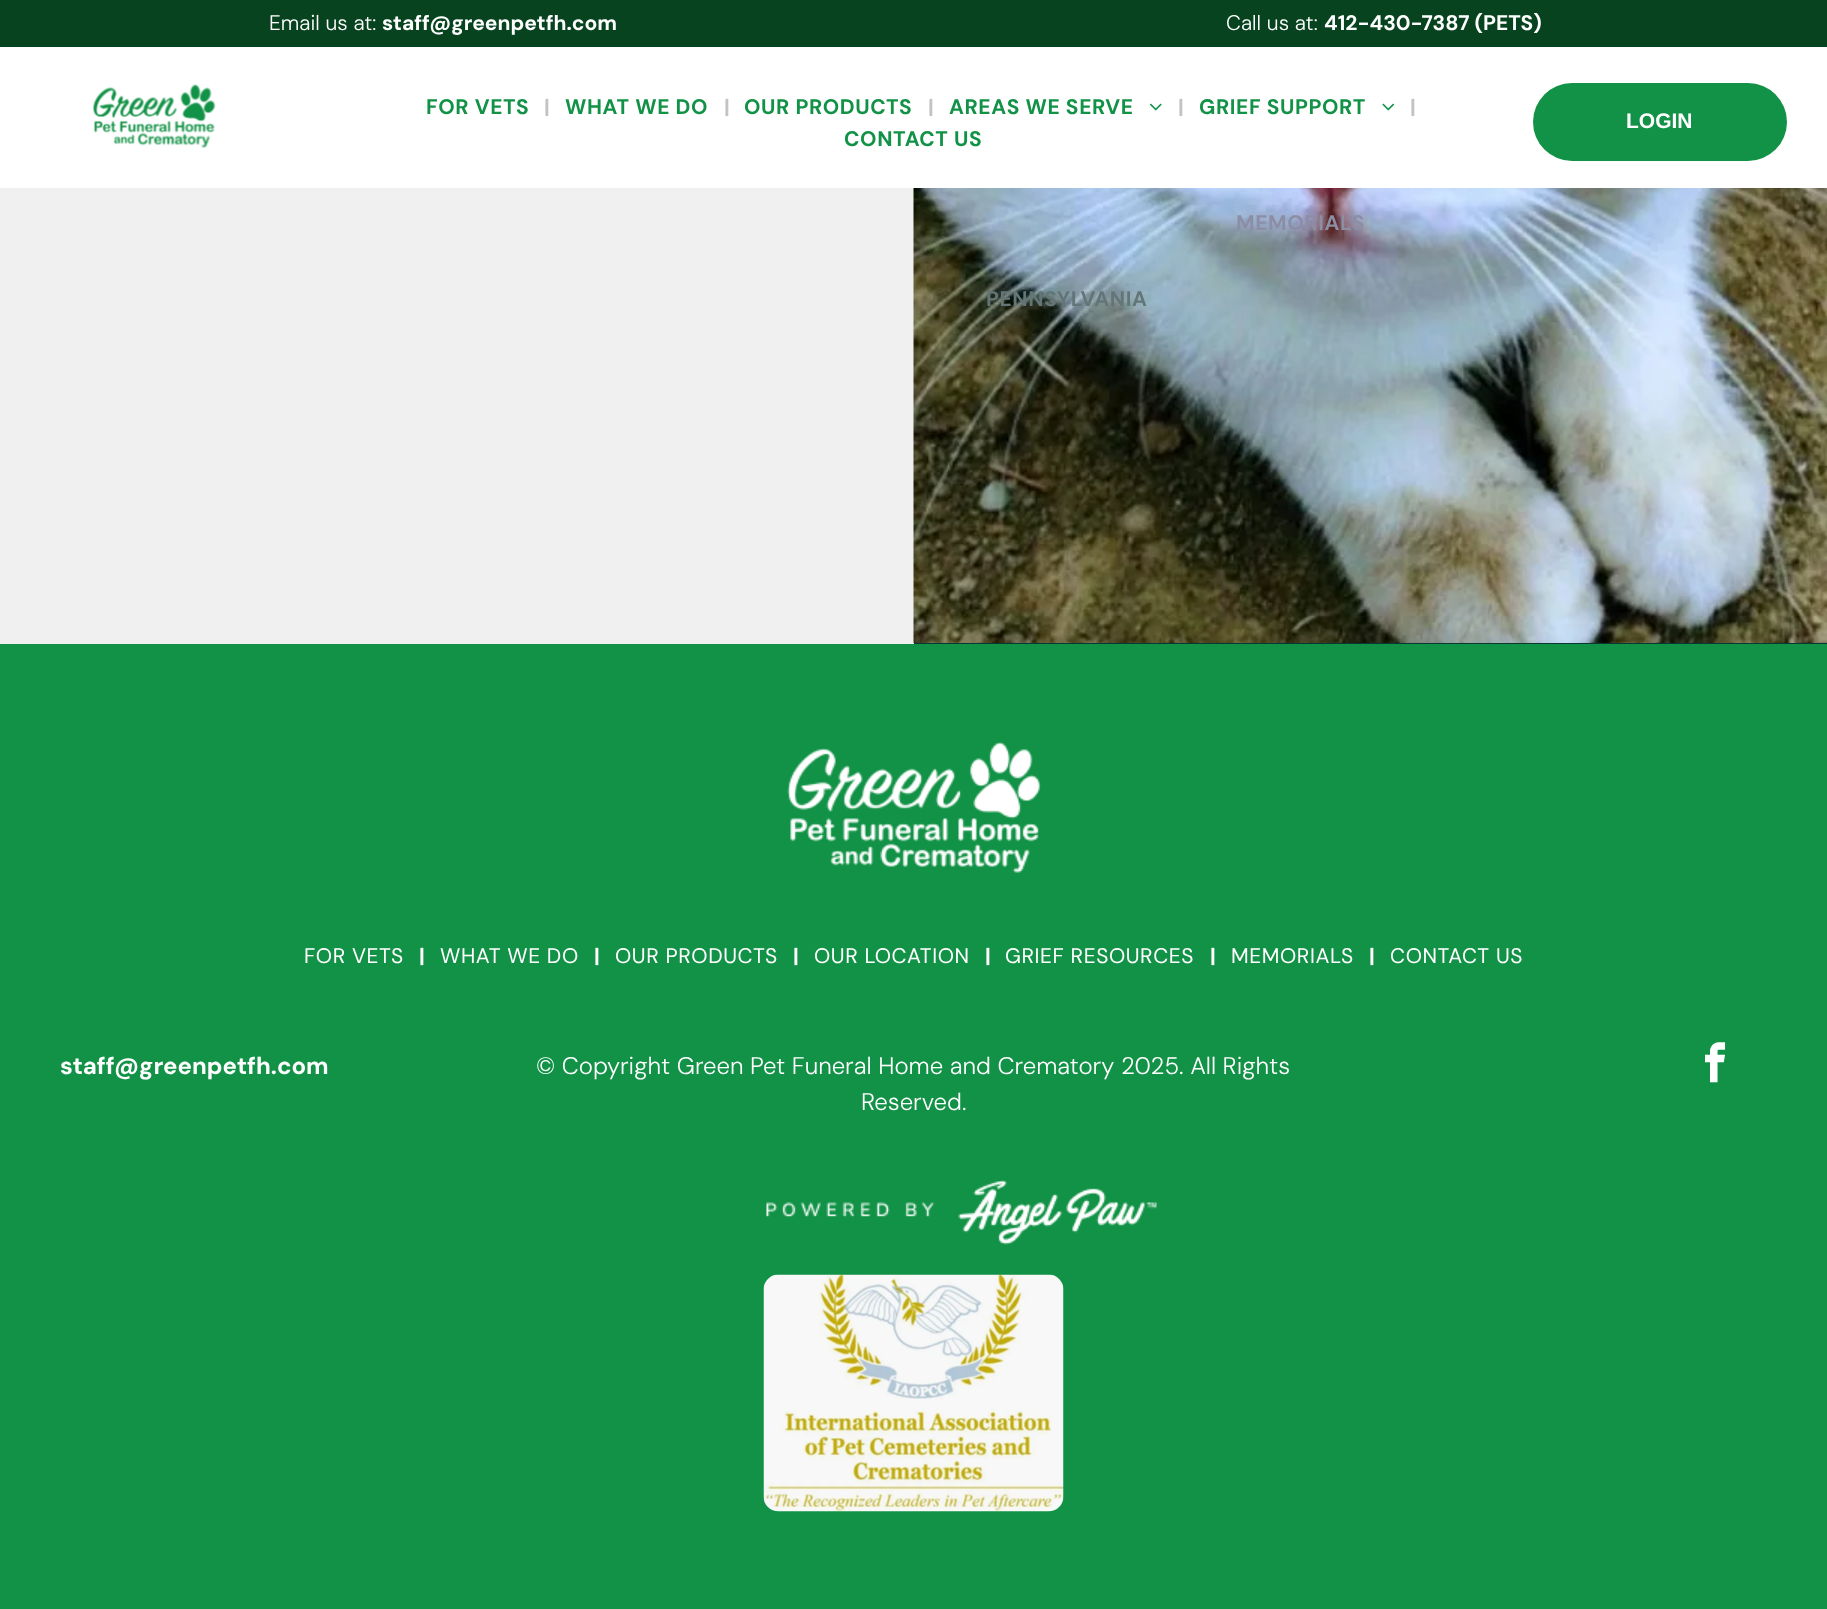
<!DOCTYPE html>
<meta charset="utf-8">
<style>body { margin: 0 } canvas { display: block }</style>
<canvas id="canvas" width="1827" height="1609"></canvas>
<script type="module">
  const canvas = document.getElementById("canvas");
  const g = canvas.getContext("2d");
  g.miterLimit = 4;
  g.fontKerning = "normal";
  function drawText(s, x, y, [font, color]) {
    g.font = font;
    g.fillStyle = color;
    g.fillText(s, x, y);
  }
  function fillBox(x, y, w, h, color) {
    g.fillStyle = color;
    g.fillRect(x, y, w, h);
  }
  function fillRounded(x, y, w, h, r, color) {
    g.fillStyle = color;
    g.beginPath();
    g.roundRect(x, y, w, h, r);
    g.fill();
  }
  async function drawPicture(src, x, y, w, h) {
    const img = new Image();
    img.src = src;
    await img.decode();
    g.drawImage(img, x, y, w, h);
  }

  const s1 = ["300 21px DM Sans", "#FFFFFF"];
  const s2 = ["bold 21px DM Sans", "#FFFFFF"];
  const s3 = ["bold 21px DM Sans", "#129246"];
  const s4 = ["bold 21px DM Sans", "#C3C3C3"];
  const s5 = ["bold 21px DM Sans", "#637576"];
  const s6 = ["bold 21px DM Sans", "#8D8EA6"];
  const s7 = ["bold 21px Liberation Sans", "#FFFFFF"];
  const s8 = ["21px DM Sans", "#FFFFFF"];
  const s9 = ["bold 24px DM Sans", "#FFFFFF"];
  const s10 = ["300 24px DM Sans", "#FFFFFF"];

  fillBox(0, 0, 1827, 1609, "#F0F0F0");
  fillBox(0, 47, 1827, 141, "#FFFFFF");
  fillBox(0, 0, 1827, 47, "#06431E");
  drawText("Email us at:", 269, 30, s1);
  drawText("staff@greenpetfh.com", 382, 30, s2);
  drawText("Call us at:", 1226, 30, s1);
  drawText("412-430-7387 (PETS)", 1324, 30, s2);
  await drawPicture("pic1.png", 93, 84, 123, 64);
  g.letterSpacing = "0.6px";
  drawText("FOR VETS", 426, 114, s3);
  g.letterSpacing = "0px";
  drawText("|", 544, 114, s4);
  g.letterSpacing = "0.6px";
  drawText("WHAT WE DO", 565, 114, s3);
  g.letterSpacing = "0px";
  drawText("|", 724, 114, s4);
  g.letterSpacing = "0.6px";
  drawText("OUR PRODUCTS", 744, 114, s3);
  g.letterSpacing = "0px";
  drawText("|", 928, 114, s4);
  g.letterSpacing = "0.6px";
  drawText("AREAS WE SERVE", 949, 114, s3);
  await drawPicture("pic2.png", 1149, 103, 13, 8);
  g.letterSpacing = "0px";
  drawText("|", 1178, 114, s4);
  await drawPicture("pic4.png", 913, 188, 914, 455);
  g.letterSpacing = "0.6px";
  drawText("PENNSYLVANIA", 986, 306, s5);
  drawText("GRIEF SUPPORT", 1199, 114, s3);
  await drawPicture("pic3.png", 1382, 103, 13, 8);
  g.letterSpacing = "0px";
  drawText("|", 1410, 114, s4);
  g.letterSpacing = "0.6px";
  drawText("MEMORIALS", 1236, 230, s6);
  drawText("CONTACT US", 844, 146, s3);
  fillRounded(1533, 83, 254, 78, 39, "#129246");
  g.letterSpacing = "0px";
  drawText("LOGIN", 1626, 128, s7);
  fillBox(914, 643, 913, 1, "#073831");
  fillBox(0, 644, 1827, 965, "#129246");
  await drawPicture("pic5.png", 787, 742, 254, 131);
  g.letterSpacing = "0.6px";
  drawText("FOR VETS", 304, 963, s8);
  g.letterSpacing = "0px";
  drawText("|", 419, 963, s2);
  g.letterSpacing = "0.6px";
  drawText("WHAT WE DO", 440, 963, s8);
  g.letterSpacing = "0px";
  drawText("|", 594, 963, s2);
  g.letterSpacing = "0.6px";
  drawText("OUR PRODUCTS", 615, 963, s8);
  g.letterSpacing = "0px";
  drawText("|", 793, 963, s2);
  g.letterSpacing = "0.6px";
  drawText("OUR LOCATION", 814, 963, s8);
  g.letterSpacing = "0px";
  drawText("|", 985, 963, s2);
  g.letterSpacing = "0.6px";
  drawText("GRIEF RESOURCES", 1005, 963, s8);
  g.letterSpacing = "0px";
  drawText("|", 1210, 963, s2);
  g.letterSpacing = "0.6px";
  drawText("MEMORIALS", 1231, 963, s8);
  g.letterSpacing = "0px";
  drawText("|", 1369, 963, s2);
  g.letterSpacing = "0.6px";
  drawText("CONTACT US", 1390, 963, s8);
  g.letterSpacing = "0px";
  drawText("staff@greenpetfh.com", 60, 1074, s9);
  drawText("© Copyright Green Pet Funeral Home and Crematory 2025. All Rights", 536, 1074, s10);
  drawText("Reserved.", 861, 1110, s10);
  await drawPicture("pic6.png", 1705, 1042, 21, 41);
  await drawPicture("pic7.png", 766, 1180, 391, 65);
  await drawPicture("pic8.png", 763, 1274, 301, 238);
</script>
